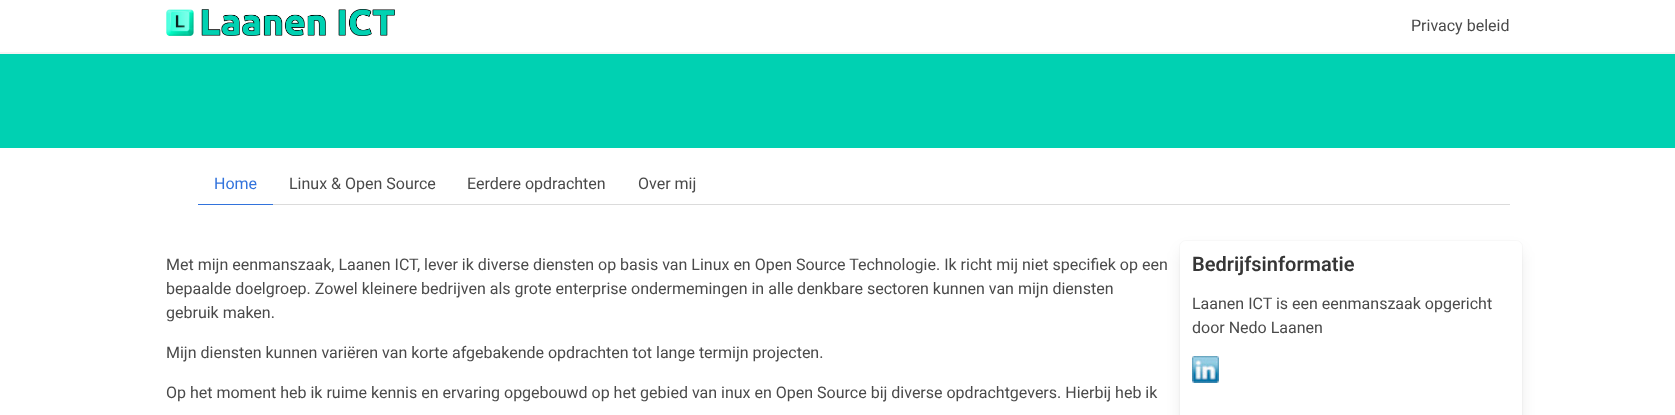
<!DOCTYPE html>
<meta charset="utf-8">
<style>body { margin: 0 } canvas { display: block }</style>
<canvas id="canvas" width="1675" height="415"></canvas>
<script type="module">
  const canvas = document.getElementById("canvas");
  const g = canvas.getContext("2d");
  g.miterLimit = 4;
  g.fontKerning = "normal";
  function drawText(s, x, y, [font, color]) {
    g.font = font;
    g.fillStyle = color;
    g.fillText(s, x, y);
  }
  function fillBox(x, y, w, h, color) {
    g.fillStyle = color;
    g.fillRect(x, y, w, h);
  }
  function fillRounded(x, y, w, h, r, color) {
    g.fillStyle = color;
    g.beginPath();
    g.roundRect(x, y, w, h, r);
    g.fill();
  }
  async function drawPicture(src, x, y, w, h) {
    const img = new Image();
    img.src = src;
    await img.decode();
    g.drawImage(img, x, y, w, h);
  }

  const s1 = ["16px Roboto", "#4A4A4A"];
  const s2 = ["16px Roboto", "#3273DC"];
  const s3 = ["600 20px Roboto", "#363636"];

  fillBox(0, 0, 1675, 415, "#FFFFFF");
  fillBox(0, 52, 1675, 2, "#F5F5F5");
  await drawPicture("pic1.png", 166, 9, 229, 27);
  drawText("Privacy beleid", 1411, 31, s1);
  fillBox(0, 54, 1675, 94, "#00D1B2");
  fillBox(273, 204, 1237, 1, "#DBDBDB");
  fillBox(198, 204, 75, 1, "#3273DC");
  drawText("Home", 214, 189, s2);
  drawText("Linux & Open Source", 289, 189, s1);
  drawText("Eerdere opdrachten", 467, 189, s1);
  drawText("Over mij", 638, 189, s1);
  drawText("Met mijn eenmanszaak, Laanen ICT, lever ik diverse diensten op basis van Linux en Open Source Technologie. Ik richt mij niet specifiek op een", 166, 270, s1);
  drawText("bepaalde doelgroep. Zowel kleinere bedrijven als grote enterprise ondermemingen in alle denkbare sectoren kunnen van mijn diensten", 166, 294, s1);
  drawText("gebruik maken.", 166, 318, s1);
  drawText("Mijn diensten kunnen variëren van korte afgebakende opdrachten tot lange termijn projecten.", 166, 358, s1);
  drawText("Op het moment heb ik ruime kennis en ervaring opgebouwd op het gebied van inux en Open Source bij diverse opdrachtgevers. Hierbij heb ik", 166, 398, s1);
  g.beginPath();
  g.roundRect(1179.5, 240.5, 343, 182, 6.5);
  g.strokeStyle = "#FAFAFA";
  g.stroke();
  g.fillStyle = "rgba(10, 10, 10, 0.1)";
  g.filter = "blur(8px)";
  g.beginPath();
  g.roundRect(1182, 251, 338, 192, 4);
  g.fill();
  g.filter = "none";
  fillRounded(1180, 241, 342, 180, 6, "#FFFFFF");
  drawText("Bedrijfsinformatie", 1192, 271, s3);
  drawText("Laanen ICT is een eenmanszaak opgericht", 1192, 309, s1);
  drawText("door Nedo Laanen", 1192, 333, s1);
  await drawPicture("pic2.png", 1192, 356, 27, 27);
</script>
